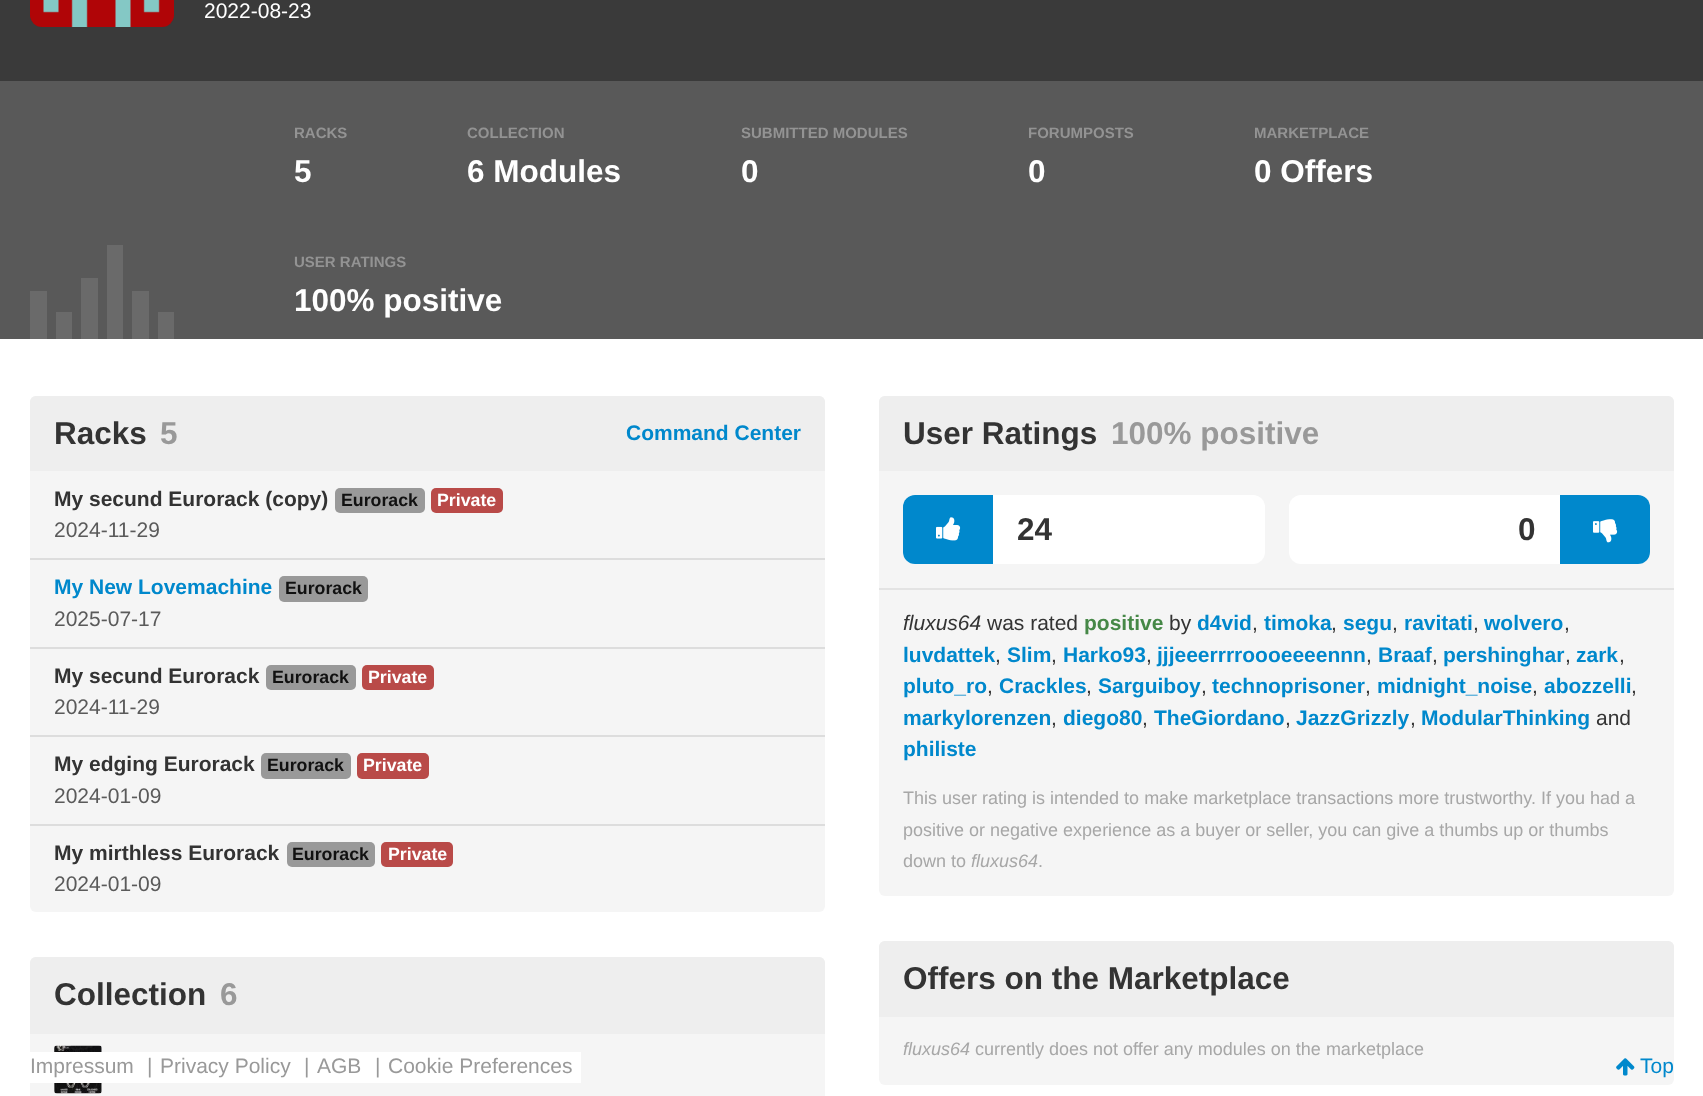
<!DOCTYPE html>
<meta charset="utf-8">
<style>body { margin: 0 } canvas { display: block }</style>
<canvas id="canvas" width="1703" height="1096"></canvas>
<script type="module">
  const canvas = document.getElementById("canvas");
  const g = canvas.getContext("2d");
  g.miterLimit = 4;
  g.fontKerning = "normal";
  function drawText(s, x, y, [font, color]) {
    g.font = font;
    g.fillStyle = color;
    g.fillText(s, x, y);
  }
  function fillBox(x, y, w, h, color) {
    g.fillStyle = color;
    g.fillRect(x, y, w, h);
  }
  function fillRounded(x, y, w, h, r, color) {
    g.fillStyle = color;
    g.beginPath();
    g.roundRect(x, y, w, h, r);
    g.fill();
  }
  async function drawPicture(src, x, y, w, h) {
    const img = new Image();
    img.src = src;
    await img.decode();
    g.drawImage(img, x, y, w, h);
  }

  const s1 = ["21px Liberation Sans", "#FFFFFF"];
  const s2 = ["bold 15px Liberation Sans", "#939393"];
  const s3 = ["bold 31.5px Liberation Sans", "#FFFFFF"];
  const s4 = ["bold 31.5px Liberation Sans", "#333333"];
  const s5 = ["bold 31.5px Liberation Sans", "#999999"];
  const s6 = ["bold 21px Liberation Sans", "#0088CC"];
  const s7 = ["bold 21px Liberation Sans", "#333333"];
  const s8 = ["bold 17.75px Liberation Sans", "#111111"];
  const s9 = ["bold 17.75px Liberation Sans", "#FFFFFF"];
  const s10 = ["21px Liberation Sans", "#5A5A5A"];
  const s11 = ["italic 21px Liberation Sans", "#333333"];
  const s12 = ["21px Liberation Sans", "#333333"];
  const s13 = ["bold 21px Liberation Sans", "#468847"];
  const s14 = ["18px Liberation Sans", "#A7A7A7"];
  const s15 = ["italic 18px Liberation Sans", "#A7A7A7"];
  const s16 = ["21px Liberation Sans", "#999999"];
  const s17 = ["21px Liberation Sans", "#0088CC"];

  fillBox(0, 0, 1703, 1096, "#FFFFFF");
  fillBox(0, 0, 1703, 81, "#3A3A3A");
  await drawPicture("pic1.png", 30, 0, 144, 27);
  drawText("2022-08-23", 204, 18, s1);
  fillBox(0, 81, 1703, 258, "#595959");
  fillBox(30, 291, 17, 48, "#6A6A6A");
  fillBox(56, 312, 16, 27, "#6A6A6A");
  fillBox(81, 278, 17, 61, "#6A6A6A");
  fillBox(107, 245, 16, 94, "#6A6A6A");
  fillBox(132, 291, 17, 48, "#6A6A6A");
  fillBox(158, 312, 16, 27, "#6A6A6A");
  drawText("RACKS", 294, 138, s2);
  drawText("5", 294, 182, s3);
  drawText("COLLECTION", 467, 138, s2);
  drawText("6 Modules", 467, 182, s3);
  drawText("SUBMITTED MODULES", 741, 138, s2);
  drawText("0", 741, 182, s3);
  drawText("FORUMPOSTS", 1028, 138, s2);
  drawText("0", 1028, 182, s3);
  drawText("MARKETPLACE", 1254, 138, s2);
  drawText("0 Offers", 1254, 182, s3);
  drawText("USER RATINGS", 294, 267, s2);
  drawText("100% positive", 294, 311, s3);
  fillRounded(30, 396, 795, 516, 6, "#F5F5F5");
  g.fillStyle = "#EEEEEE";
  g.beginPath();
  g.roundRect(30, 396, 795, 75, [6, 6, 0, 0]);
  g.fill();
  drawText("Racks", 54, 444, s4);
  drawText("5", 160, 444, s5);
  drawText("Command Center", 626, 440, s6);
  drawText("My secund Eurorack (copy)", 54, 506, s7);
  fillRounded(335, 488, 90, 25, 5, "#999999");
  drawText("Eurorack", 341, 506, s8);
  fillRounded(431, 488, 72, 25, 5, "#B94A48");
  drawText("Private", 437, 506, s9);
  drawText("2024-11-29", 54, 537, s10);
  fillBox(30, 558, 795, 2, "#DDDDDD");
  drawText("My New Lovemachine", 54, 594, s6);
  fillRounded(279, 576, 89, 26, 5, "#999999");
  drawText("Eurorack", 285, 594, s8);
  drawText("2025-07-17", 54, 626, s10);
  fillBox(30, 647, 795, 2, "#DDDDDD");
  drawText("My secund Eurorack", 54, 683, s7);
  fillRounded(266, 665, 90, 25, 5, "#999999");
  drawText("Eurorack", 272, 683, s8);
  fillRounded(362, 665, 72, 25, 5, "#B94A48");
  drawText("Private", 368, 683, s9);
  drawText("2024-11-29", 54, 714, s10);
  fillBox(30, 735, 795, 2, "#DDDDDD");
  drawText("My edging Eurorack", 54, 771, s7);
  fillRounded(261, 753, 90, 26, 5, "#999999");
  drawText("Eurorack", 267, 771, s8);
  fillRounded(357, 753, 72, 26, 5, "#B94A48");
  drawText("Private", 363, 771, s9);
  drawText("2024-01-09", 54, 803, s10);
  fillBox(30, 824, 795, 2, "#DDDDDD");
  drawText("My mirthless Eurorack", 54, 860, s7);
  fillRounded(287, 842, 88, 25, 5, "#999999");
  drawText("Eurorack", 292, 860, s8);
  fillRounded(381, 842, 72, 25, 5, "#B94A48");
  drawText("Private", 388, 860, s9);
  drawText("2024-01-09", 54, 891, s10);
  fillRounded(30, 957, 795, 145, 6, "#F5F5F5");
  g.fillStyle = "#EEEEEE";
  g.beginPath();
  g.roundRect(30, 957, 795, 77, [6, 6, 0, 0]);
  g.fill();
  drawText("Collection", 54, 1005, s4);
  drawText("6", 220, 1005, s5);
  await drawPicture("pic2.png", 54, 1045, 48, 49);
  fillRounded(879, 396, 795, 500, 6, "#F5F5F5");
  g.fillStyle = "#EEEEEE";
  g.beginPath();
  g.roundRect(879, 396, 795, 75, [6, 6, 0, 0]);
  g.fill();
  drawText("User Ratings", 903, 444, s4);
  drawText("100% positive", 1111, 444, s5);
  fillRounded(903, 495, 362, 69, 12, "#FFFFFF");
  g.fillStyle = "#0088CC";
  g.beginPath();
  g.roundRect(903, 495, 90, 69, [12, 0, 0, 12]);
  g.fill();
  await drawPicture("pic3.png", 936, 517, 25, 24);
  drawText("24", 1017, 540, s4);
  fillRounded(1289, 495, 361, 69, 12, "#FFFFFF");
  drawText("0", 1518, 540, s4);
  g.fillStyle = "#0088CC";
  g.beginPath();
  g.roundRect(1560, 495, 90, 69, [0, 12, 12, 0]);
  g.fill();
  await drawPicture("pic4.png", 1593, 519, 25, 24);
  fillBox(879, 588, 795, 2, "#E3E3E3");
  drawText("fluxus64", 903, 630, s11);
  drawText("was rated", 987, 630, s12);
  drawText("positive", 1084, 630, s13);
  drawText("by", 1169, 630, s12);
  drawText("d4vid", 1197, 630, s6);
  drawText(",", 1252, 630, s12);
  drawText("timoka", 1264, 630, s6);
  drawText(",", 1331, 630, s12);
  drawText("segu", 1343, 630, s6);
  drawText(",", 1392, 630, s12);
  drawText("ravitati", 1404, 630, s6);
  drawText(",", 1473, 630, s12);
  drawText("wolvero", 1484, 630, s6);
  drawText(",", 1564, 630, s12);
  drawText("luvdattek", 903, 662, s6);
  drawText(",", 995, 662, s12);
  drawText("Slim", 1007, 662, s6);
  drawText(",", 1051, 662, s12);
  drawText("Harko93", 1063, 662, s6);
  drawText(",", 1146, 662, s12);
  drawText("jjjeeerrrroooeeeennn", 1157, 662, s6);
  drawText(",", 1366, 662, s12);
  drawText("Braaf", 1378, 662, s6);
  drawText(",", 1432, 662, s12);
  drawText("pershinghar", 1443, 662, s6);
  drawText(",", 1565, 662, s12);
  drawText("zark", 1576, 662, s6);
  drawText(",", 1619, 662, s12);
  drawText("pluto_ro", 903, 693, s6);
  drawText(",", 987, 693, s12);
  drawText("Crackles", 999, 693, s6);
  drawText(",", 1086, 693, s12);
  drawText("Sarguiboy", 1098, 693, s6);
  drawText(",", 1201, 693, s12);
  drawText("technoprisoner", 1212, 693, s6);
  drawText(",", 1365, 693, s12);
  drawText("midnight_noise", 1377, 693, s6);
  drawText(",", 1532, 693, s12);
  drawText("abozzelli", 1544, 693, s6);
  drawText(",", 1631, 693, s12);
  drawText("markylorenzen", 903, 725, s6);
  drawText(",", 1051, 725, s12);
  drawText("diego80", 1063, 725, s6);
  drawText(",", 1142, 725, s12);
  drawText("TheGiordano", 1154, 725, s6);
  drawText(",", 1285, 725, s12);
  drawText("JazzGrizzly", 1296, 725, s6);
  drawText(",", 1410, 725, s12);
  drawText("ModularThinking", 1421, 725, s6);
  drawText("and", 1596, 725, s12);
  drawText("philiste", 903, 756, s6);
  drawText("This user rating is intended to make marketplace transactions more trustworthy. If you had a", 903, 804, s14);
  drawText("positive or negative experience as a buyer or seller, you can give a thumbs up or thumbs", 903, 836, s14);
  drawText("down to", 903, 867, s14);
  drawText("fluxus64", 971, 867, s15);
  drawText(".", 1038, 867, s14);
  fillRounded(879, 941, 795, 144, 6, "#F5F5F5");
  g.fillStyle = "#EEEEEE";
  g.beginPath();
  g.roundRect(879, 941, 795, 76, [6, 6, 0, 0]);
  g.fill();
  drawText("Offers on the Marketplace", 903, 989, s4);
  drawText("fluxus64", 903, 1055, s15);
  drawText("currently does not offer any modules on the marketplace", 975, 1055, s14);
  fillBox(30, 1052, 551, 31, "#FFFFFF");
  drawText("Impressum", 30, 1073, s16);
  drawText("|", 147, 1073, s16);
  drawText("Privacy Policy", 160, 1073, s16);
  drawText("|", 304, 1073, s16);
  drawText("AGB", 317, 1073, s16);
  drawText("|", 375, 1073, s16);
  drawText("Cookie Preferences", 388, 1073, s16);
  await drawPicture("pic5.png", 1616, 1058, 19, 18);
  drawText("Top", 1640, 1073, s17);
</script>
